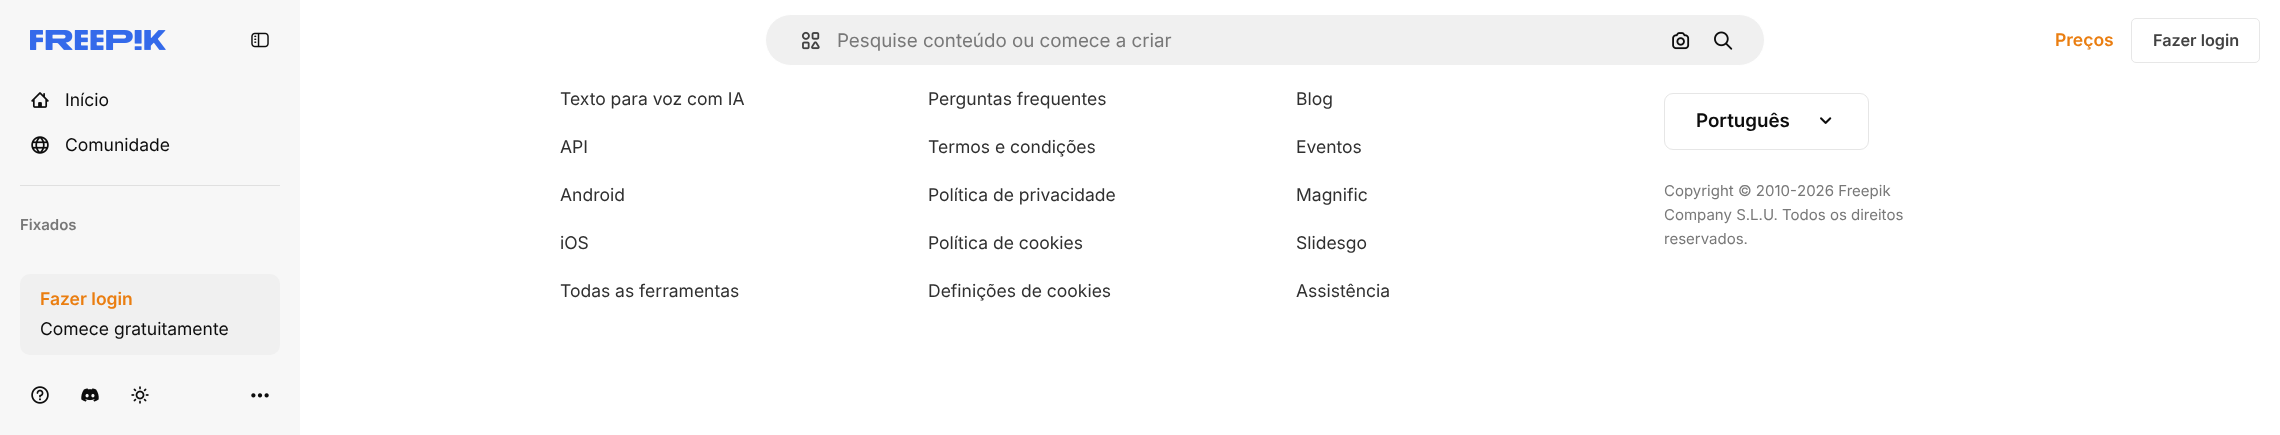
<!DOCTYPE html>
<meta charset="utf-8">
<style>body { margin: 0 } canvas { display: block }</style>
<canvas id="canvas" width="2280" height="435"></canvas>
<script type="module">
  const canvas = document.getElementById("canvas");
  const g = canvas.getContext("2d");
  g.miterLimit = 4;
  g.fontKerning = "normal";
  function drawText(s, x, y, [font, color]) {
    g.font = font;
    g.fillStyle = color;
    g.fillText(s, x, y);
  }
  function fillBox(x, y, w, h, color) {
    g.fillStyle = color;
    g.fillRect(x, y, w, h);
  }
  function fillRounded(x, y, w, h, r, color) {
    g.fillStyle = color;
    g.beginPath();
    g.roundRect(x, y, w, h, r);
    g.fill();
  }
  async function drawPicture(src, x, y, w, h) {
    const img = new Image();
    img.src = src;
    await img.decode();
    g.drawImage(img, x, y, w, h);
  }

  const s1 = ["17.5px Inter", "#0D0D0D"];
  const s2 = ["600 15px Inter", "#787878"];
  const s3 = ["600 17.5px Inter", "#EA7E11"];
  const s4 = ["18.75px Inter", "#787878"];
  const s5 = ["600 16.25px Inter", "#424242"];
  const s6 = ["17.5px Inter", "#303030"];
  const s7 = ["600 18.75px Inter", "#0D0D0D"];
  const s8 = ["15px Inter", "#787878"];

  fillBox(0, 0, 2280, 435, "#FFFFFF");
  fillBox(0, 0, 300, 435, "#F7F7F7");
  await drawPicture("pic1.png", 30, 30, 136, 20);
  await drawPicture("pic2.png", 251, 32, 18, 16);
  await drawPicture("pic3.png", 31, 92, 18, 16);
  drawText("Início", 65, 106, s1);
  await drawPicture("pic4.png", 31, 136, 18, 18);
  drawText("Comunidade", 65, 151, s1);
  fillBox(20, 185, 260, 1, "#E0E0E0");
  drawText("Fixados", 20, 230, s2);
  fillRounded(20, 274, 260, 81, 10, "#F0F0F0");
  drawText("Fazer login", 40, 305, s3);
  drawText("Comece gratuitamente", 40, 335, s1);
  await drawPicture("pic5.png", 31, 386, 18, 18);
  await drawPicture("pic6.png", 81, 388, 18, 14);
  await drawPicture("pic7.png", 131, 386, 18, 18);
  await drawPicture("pic8.png", 251, 393, 18, 5);
  g.fillStyle = "#F0F0F0";
  g.beginPath();
  g.roundRect(765.5, 14.5, 999, 51, 25.5);
  g.fill();
  g.strokeStyle = "#FFFFFF";
  g.stroke();
  await drawPicture("pic9.png", 801, 31, 19, 19);
  drawText("Pesquise conteúdo ou comece a criar", 837, 47, s4);
  await drawPicture("pic10.png", 1672, 32, 18, 18);
  await drawPicture("pic11.png", 1714, 31, 19, 19);
  drawText("Preços", 2055, 46, s3);
  g.beginPath();
  g.roundRect(2131.5, 18.5, 128, 44, 4.5);
  g.strokeStyle = "#E7E7E7";
  g.stroke();
  drawText("Fazer login", 2153, 46, s5);
  drawText("Texto para voz com IA", 560, 105, s6);
  drawText("API", 560, 153, s6);
  drawText("Android", 560, 201, s6);
  drawText("iOS", 560, 249, s6);
  drawText("Todas as ferramentas", 560, 297, s6);
  drawText("Perguntas frequentes", 928, 105, s6);
  drawText("Termos e condições", 928, 153, s6);
  drawText("Política de privacidade", 928, 201, s6);
  drawText("Política de cookies", 928, 249, s6);
  drawText("Definições de cookies", 928, 297, s6);
  drawText("Blog", 1296, 105, s6);
  drawText("Eventos", 1296, 153, s6);
  drawText("Magnific", 1296, 201, s6);
  drawText("Slidesgo", 1296, 249, s6);
  drawText("Assistência", 1296, 297, s6);
  g.beginPath();
  g.roundRect(1664.5, 93.5, 204, 56, 8.5);
  g.strokeStyle = "#E6E6E6";
  g.stroke();
  drawText("Português", 1696, 127, s7);
  await drawPicture("pic12.png", 1820, 117, 12, 7);
  drawText("Copyright © 2010-", 1664, 196, s8);
  drawText("2026 Freepik", 1797, 196, s8);
  drawText("Company S.L.U. Todos os direitos", 1664, 220, s8);
  drawText("reservados.", 1664, 244, s8);
</script>
